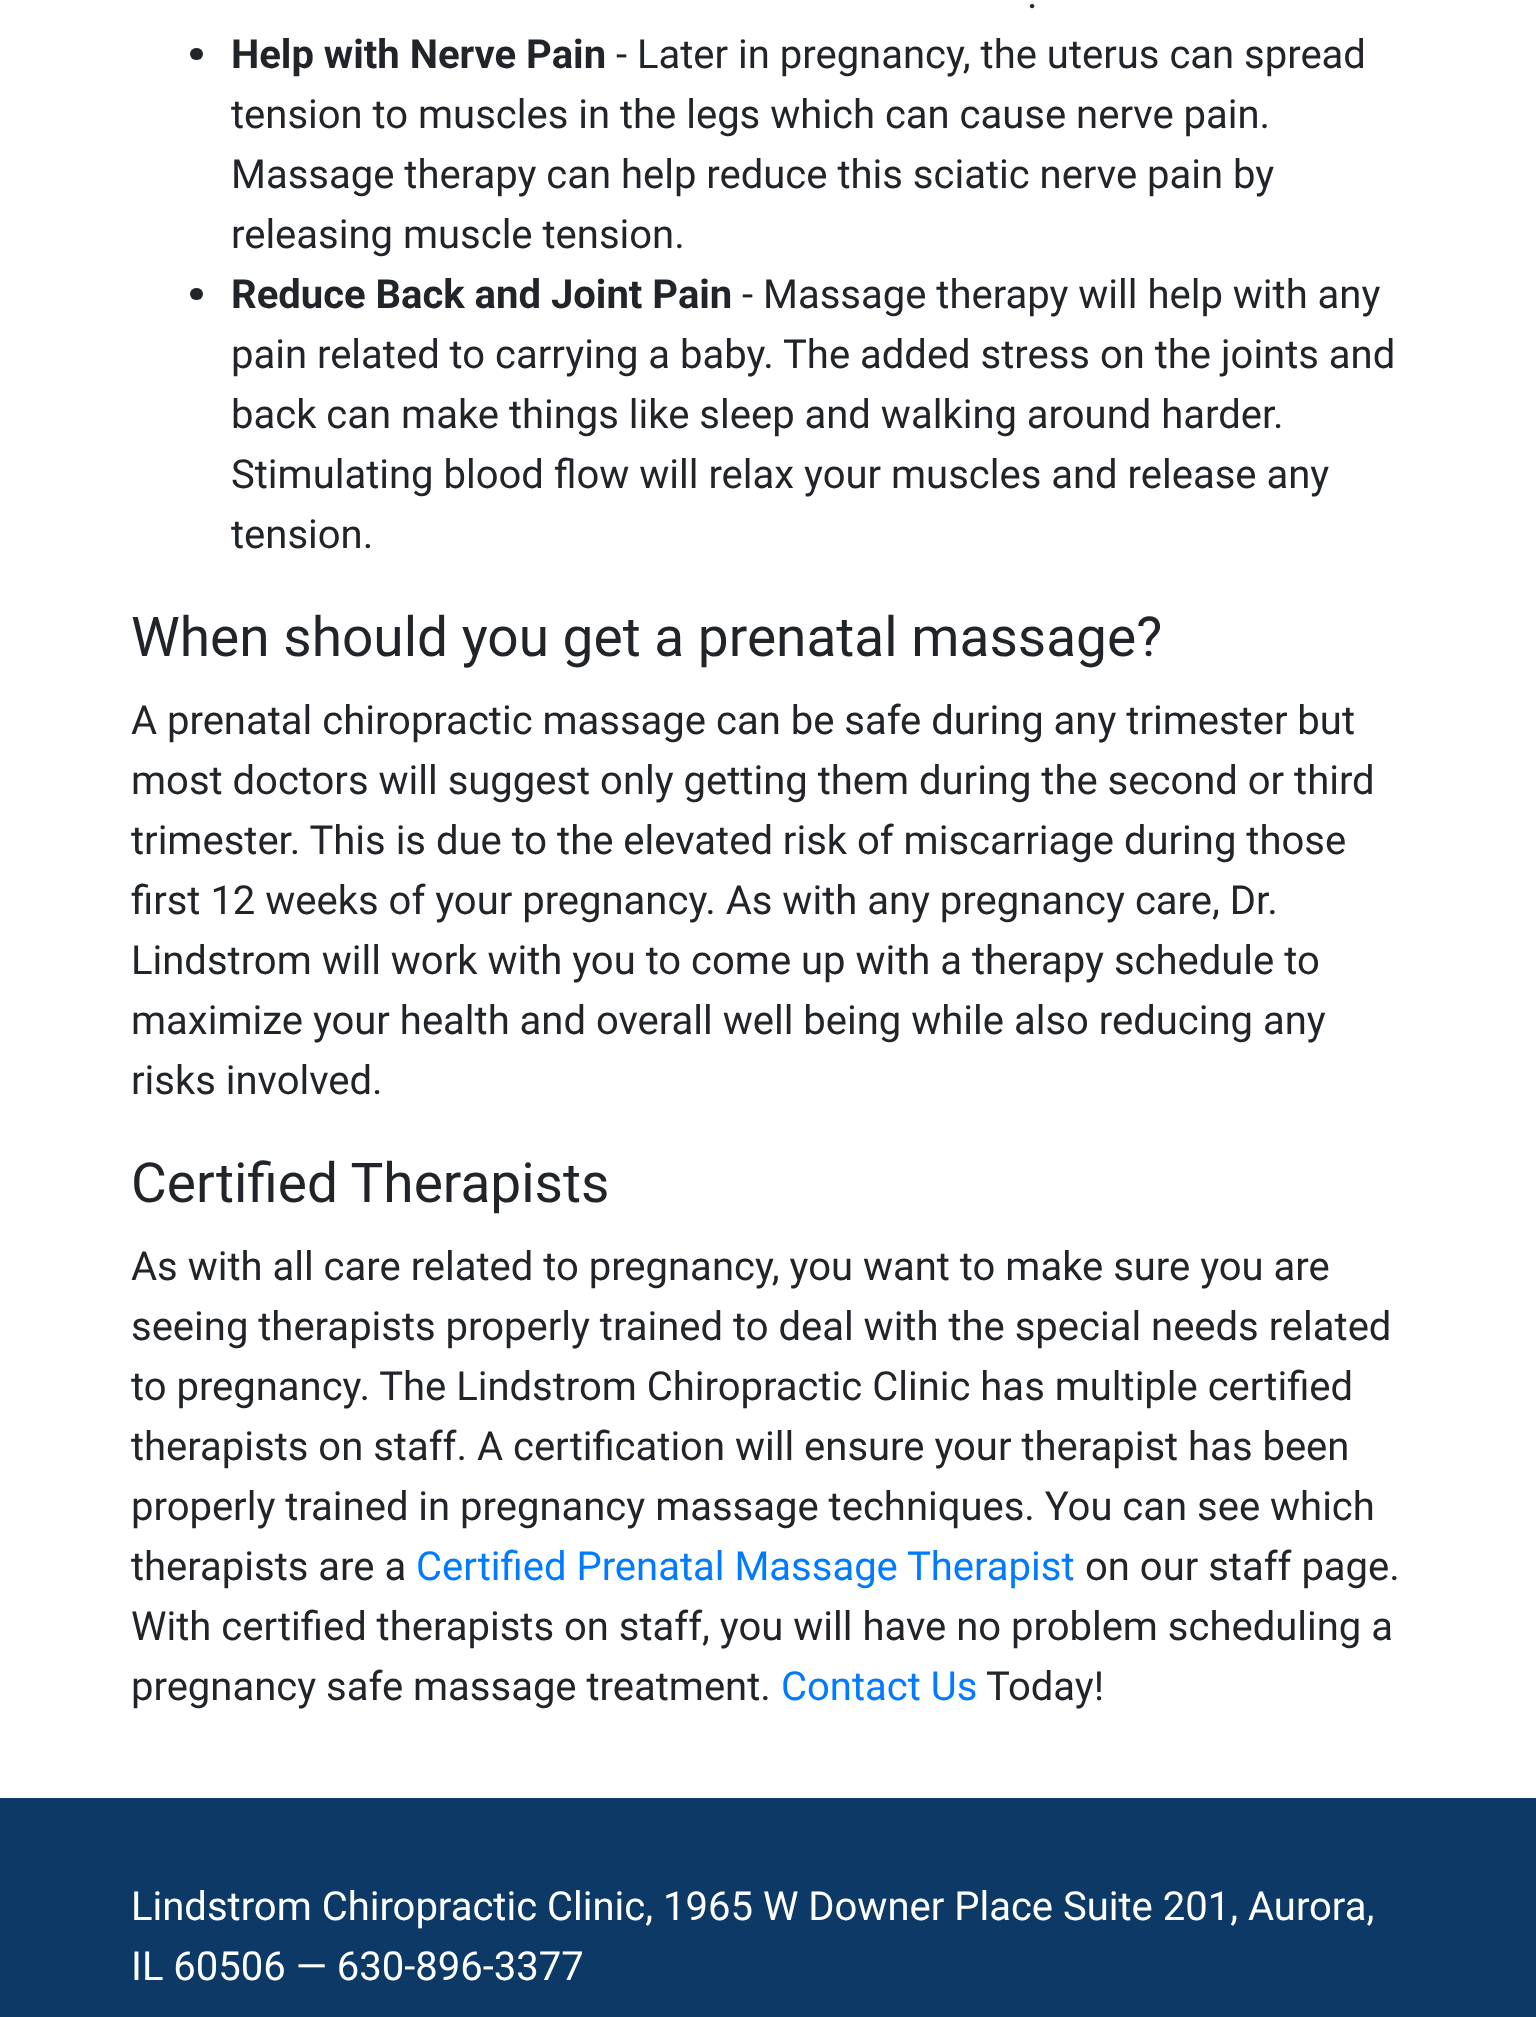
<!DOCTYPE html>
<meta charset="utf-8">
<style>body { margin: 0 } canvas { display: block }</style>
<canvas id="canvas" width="1536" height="2017"></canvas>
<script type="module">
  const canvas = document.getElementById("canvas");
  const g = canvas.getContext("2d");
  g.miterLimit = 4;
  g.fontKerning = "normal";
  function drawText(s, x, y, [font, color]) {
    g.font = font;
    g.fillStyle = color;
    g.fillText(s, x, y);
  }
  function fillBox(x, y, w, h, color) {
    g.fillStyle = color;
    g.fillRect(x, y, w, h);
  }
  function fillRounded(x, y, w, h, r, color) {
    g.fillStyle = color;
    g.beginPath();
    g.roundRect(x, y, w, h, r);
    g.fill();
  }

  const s1 = ["40px Roboto", "#212529"];
  const s2 = ["bold 40px Roboto", "#212529"];
  const s3 = ["55px Roboto", "#212529"];
  const s4 = ["40px Roboto", "#007BFF"];
  const s5 = ["40px Roboto", "#FFFFFF"];

  fillBox(0, 0, 1536, 2017, "#FFFFFF");
  drawText(".", 1027, 8, s1);
  fillRounded(190, 48, 13, 12, 6, "#212529");
  drawText("Help with Nerve Pain", 231, 68, s2);
  drawText("- Later in pregnancy, the uterus can spread", 616, 68, s1);
  drawText("tension to muscles in the legs which can cause nerve pain.", 231, 128, s1);
  drawText("Massage therapy can help reduce this sciatic nerve pain by", 231, 188, s1);
  drawText("releasing muscle tension.", 231, 248, s1);
  fillRounded(190, 288, 13, 12, 6, "#212529");
  drawText("Reduce Back and Joint Pain", 231, 308, s2);
  drawText("- Massage therapy will help with any", 742, 308, s1);
  drawText("pain related to carrying a baby. The added stress on the joints and", 231, 368, s1);
  drawText("back can make things like sleep and walking around harder.", 231, 428, s1);
  drawText("Stimulating blood flow will relax your muscles and release any", 231, 488, s1);
  drawText("tension.", 231, 548, s1);
  drawText("When should you get a prenatal massage?", 131, 656, s3);
  drawText("A prenatal chiropractic massage can be safe during any trimester but", 131, 734, s1);
  drawText("most doctors will suggest only getting them during the second or third", 131, 794, s1);
  drawText("trimester. This is due to the elevated risk of miscarriage during those", 131, 854, s1);
  drawText("first 12 weeks of your pregnancy. As with any pregnancy care, Dr.", 131, 914, s1);
  drawText("Lindstrom will work with you to come up with a therapy schedule to", 131, 974, s1);
  drawText("maximize your health and overall well being while also reducing any", 131, 1034, s1);
  drawText("risks involved.", 131, 1094, s1);
  drawText("Certified Therapists", 131, 1202, s3);
  drawText("As with all care related to pregnancy, you want to make sure you are", 131, 1280, s1);
  drawText("seeing therapists properly trained to deal with the special needs related", 131, 1340, s1);
  drawText("to pregnancy. The Lindstrom Chiropractic Clinic has multiple certified", 131, 1400, s1);
  drawText("therapists on staff. A certification will ensure your therapist has been", 131, 1460, s1);
  drawText("properly trained in pregnancy massage techniques. You can see which", 131, 1520, s1);
  drawText("therapists are a", 131, 1580, s1);
  drawText("Certified Prenatal Massage Therapist", 416, 1580, s4);
  drawText("on our staff page.", 1085, 1580, s1);
  drawText("With certified therapists on staff, you will have no problem scheduling a", 131, 1640, s1);
  drawText("pregnancy safe massage treatment.", 131, 1700, s1);
  drawText("Contact Us", 781, 1700, s4);
  drawText("Today!", 986, 1700, s1);
  fillBox(0, 1798, 1536, 219, "#0D3967");
  drawText("Lindstrom Chiropractic Clinic, 1965 W Downer Place Suite 201, Aurora,", 131, 1920, s5);
  drawText("IL 60506 — 630-896-3377", 131, 1980, s5);
</script>
